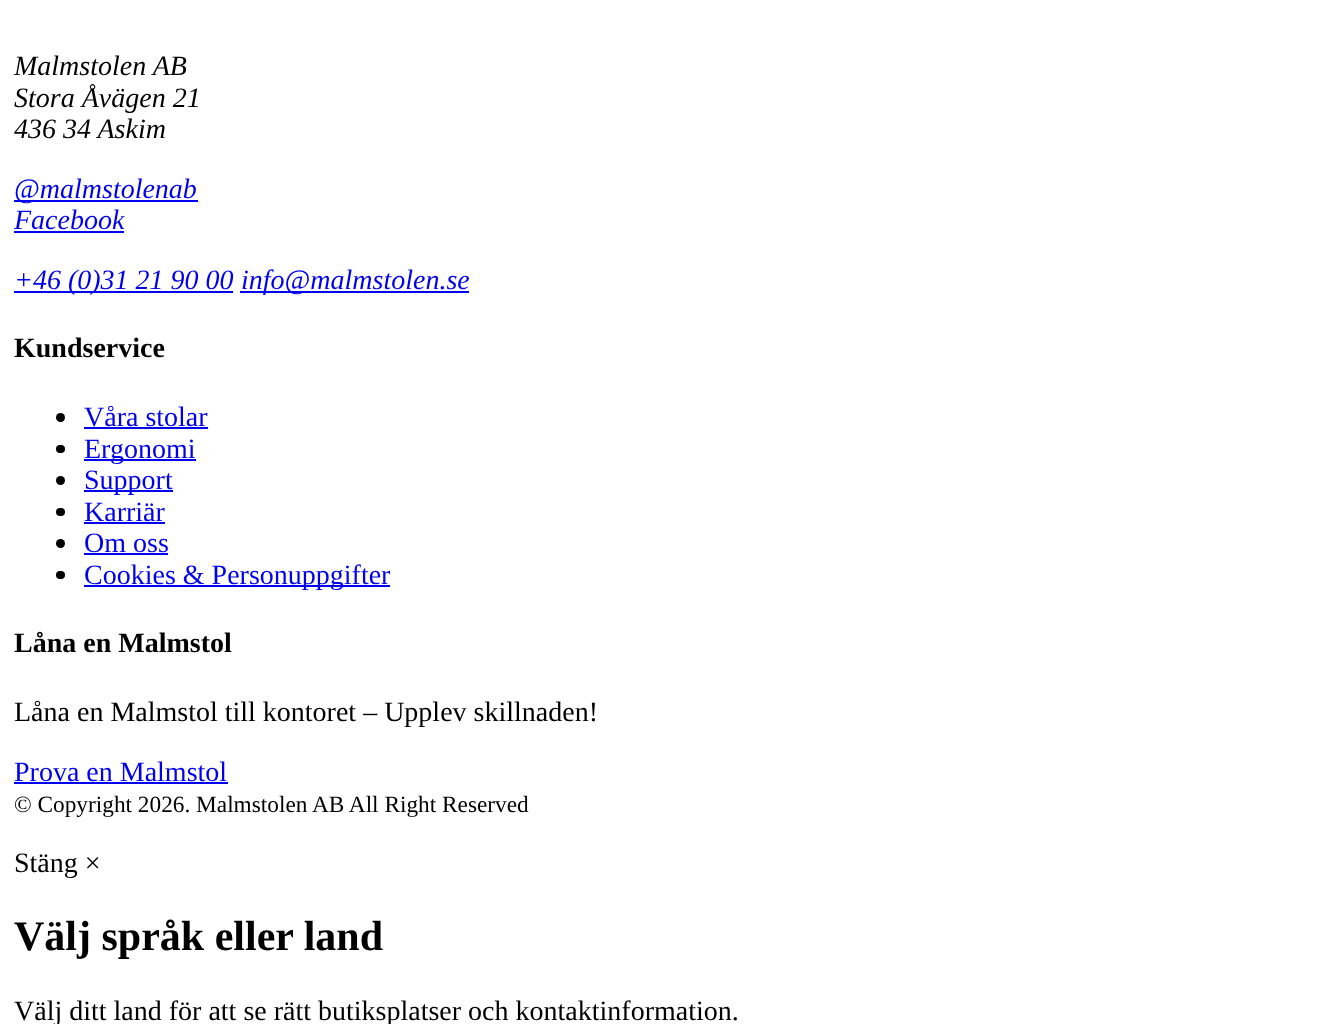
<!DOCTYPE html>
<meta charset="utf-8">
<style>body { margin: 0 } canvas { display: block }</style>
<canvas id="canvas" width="1339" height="1024"></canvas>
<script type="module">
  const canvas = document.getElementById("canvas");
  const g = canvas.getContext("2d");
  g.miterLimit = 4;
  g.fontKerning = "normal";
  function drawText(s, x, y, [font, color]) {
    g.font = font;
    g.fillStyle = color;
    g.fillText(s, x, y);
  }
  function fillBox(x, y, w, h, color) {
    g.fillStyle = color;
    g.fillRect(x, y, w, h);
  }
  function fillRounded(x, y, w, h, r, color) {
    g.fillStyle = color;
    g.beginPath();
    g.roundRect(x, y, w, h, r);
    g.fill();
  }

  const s1 = ["italic 28px Liberation Serif", "#000000"];
  const s2 = ["italic 28px Liberation Serif", "#0000EE"];
  const s3 = ["bold 28px Liberation Serif", "#000000"];
  const s4 = ["28px Liberation Serif", "#0000EE"];
  const s5 = ["28px Liberation Serif", "#000000"];
  const s6 = ["23.3px Liberation Serif", "#000000"];
  const s7 = ["bold 42px Liberation Serif", "#000000"];

  fillBox(0, 0, 1339, 1024, "#FFFFFF");
  drawText("Malmstolen AB", 14, 75, s1);
  drawText("Stora Åvägen 21", 14, 107, s1);
  drawText("436 34 Askim", 14, 138, s1);
  fillBox(14, 200, 184, 2, "#0000EE");
  drawText("@malmstolenab", 14, 198, s2);
  drawText("Facebook", 14, 229, s2);
  fillBox(14, 231, 110, 2, "#0000EE");
  fillBox(14, 291, 219, 2, "#0000EE");
  drawText("+46 (0)31 21 90 00", 14, 289, s2);
  fillBox(240, 291, 229, 2, "#0000EE");
  drawText("info@malmstolen.se", 241, 289, s2);
  drawText("Kundservice", 14, 357, s3);
  g.beginPath();
  g.arc(60.5, 417.5, 4.5, 0, Math.PI * 2);
  g.fill();
  drawText("Våra stolar", 84, 426, s4);
  fillBox(84, 427, 124, 2, "#0000EE");
  fillRounded(56, 445, 9, 8, 4, "#000000");
  fillBox(84, 459, 112, 2, "#0000EE");
  drawText("Ergonomi", 84, 458, s4);
  g.fillStyle = "#000000";
  g.beginPath();
  g.arc(60.5, 480.5, 4.5, 0, Math.PI * 2);
  g.fill();
  fillBox(84, 490, 89, 2, "#0000EE");
  drawText("Support", 84, 489, s4);
  fillRounded(56, 508, 9, 8, 4, "#000000");
  drawText("Karriär", 84, 521, s4);
  fillBox(84, 522, 81, 2, "#0000EE");
  g.fillStyle = "#000000";
  g.beginPath();
  g.arc(60.5, 543.5, 4.5, 0, Math.PI * 2);
  g.fill();
  drawText("Om oss", 84, 552, s4);
  fillBox(84, 553, 84, 2, "#0000EE");
  fillRounded(56, 571, 9, 8, 4, "#000000");
  fillBox(84, 585, 306, 2, "#0000EE");
  drawText("Cookies & Personuppgifter", 84, 584, s4);
  drawText("Låna en Malmstol", 14, 652, s3);
  drawText("Låna en Malmstol till kontoret – Upplev skillnaden!", 14, 721, s5);
  drawText("Prova en Malmstol", 14, 781, s4);
  fillBox(14, 782, 214, 2, "#0000EE");
  drawText("© Copyright 2026. Malmstolen AB All Right Reserved", 14, 812, s6);
  drawText("Stäng ×", 14, 872, s5);
  drawText("Välj språk eller land", 14, 950, s7);
  drawText("Välj ditt land för att se rätt butiksplatser och kontaktinformation.", 14, 1020, s5);
</script>
